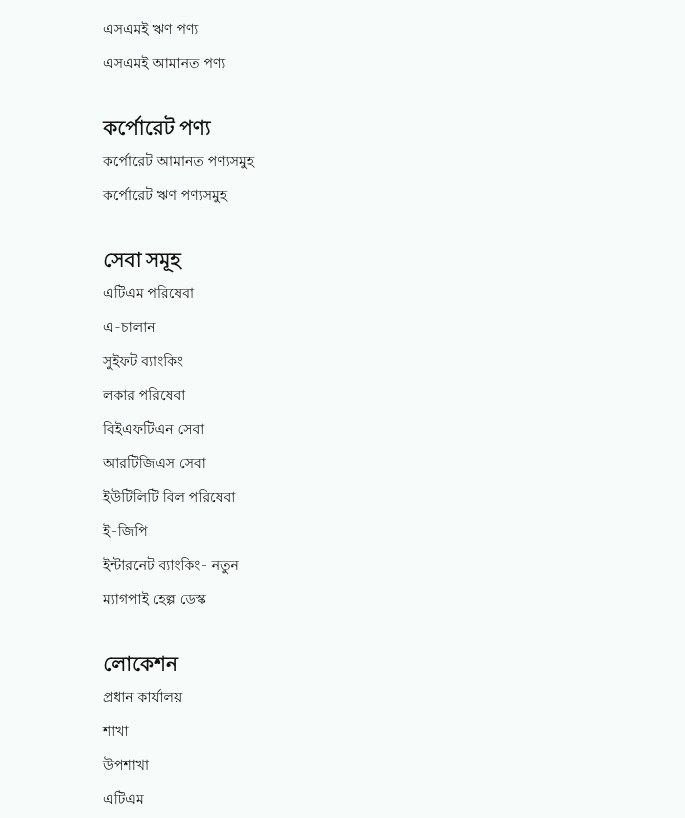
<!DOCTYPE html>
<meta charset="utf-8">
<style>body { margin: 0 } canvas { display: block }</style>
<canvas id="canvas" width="685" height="818"></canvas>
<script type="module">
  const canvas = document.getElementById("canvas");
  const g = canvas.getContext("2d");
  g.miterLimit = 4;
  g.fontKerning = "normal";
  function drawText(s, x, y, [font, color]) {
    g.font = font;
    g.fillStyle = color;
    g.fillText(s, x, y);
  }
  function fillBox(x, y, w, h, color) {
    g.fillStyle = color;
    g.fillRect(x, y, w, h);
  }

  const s1 = ["14px Lohit Bengali", "#111111"];
  const s2 = ["bold 20px Lohit Bengali", "#111111"];

  fillBox(0, 0, 685, 818, "#F7FBF9");
  drawText("এসএমই ঋণ পণ্য", 103, 34, s1);
  drawText("এসএমই আমানত পণ্য", 103, 68, s1);
  g.wordSpacing = "-1px";
  drawText("কর্পোরেট পণ্য", 103, 135, s2);
  g.wordSpacing = "0px";
  drawText("কর্পোরেট আমানত পণ্যসমুহ", 103, 166, s1);
  drawText("কর্পোরেট ঋণ পণ্যসমুহ", 103, 200, s1);
  g.wordSpacing = "-1px";
  drawText("সেবা সমূহ", 103, 267, s2);
  g.wordSpacing = "0px";
  drawText("এটিএম পরিষেবা", 103, 298, s1);
  drawText("এ-চালান", 103, 332, s1);
  drawText("সুইফট ব্যাংকিং", 103, 366, s1);
  drawText("লকার পরিষেবা", 103, 400, s1);
  drawText("বিইএফটিএন সেবা", 103, 434, s1);
  drawText("আরটিজিএস সেবা", 103, 468, s1);
  drawText("ইউটিলিটি বিল পরিষেবা", 103, 502, s1);
  drawText("ই-জিপি", 103, 536, s1);
  drawText("ইন্টারনেট ব্যাংকিং- নতুন", 103, 570, s1);
  drawText("ম্যাগপাই হেল্প ডেস্ক", 103, 604, s1);
  drawText("লোকেশন", 103, 671, s2);
  drawText("প্রধান কার্যালয়", 103, 702, s1);
  drawText("শাখা", 103, 736, s1);
  drawText("উপশাখা", 103, 770, s1);
  drawText("এটিএম", 103, 804, s1);
</script>
